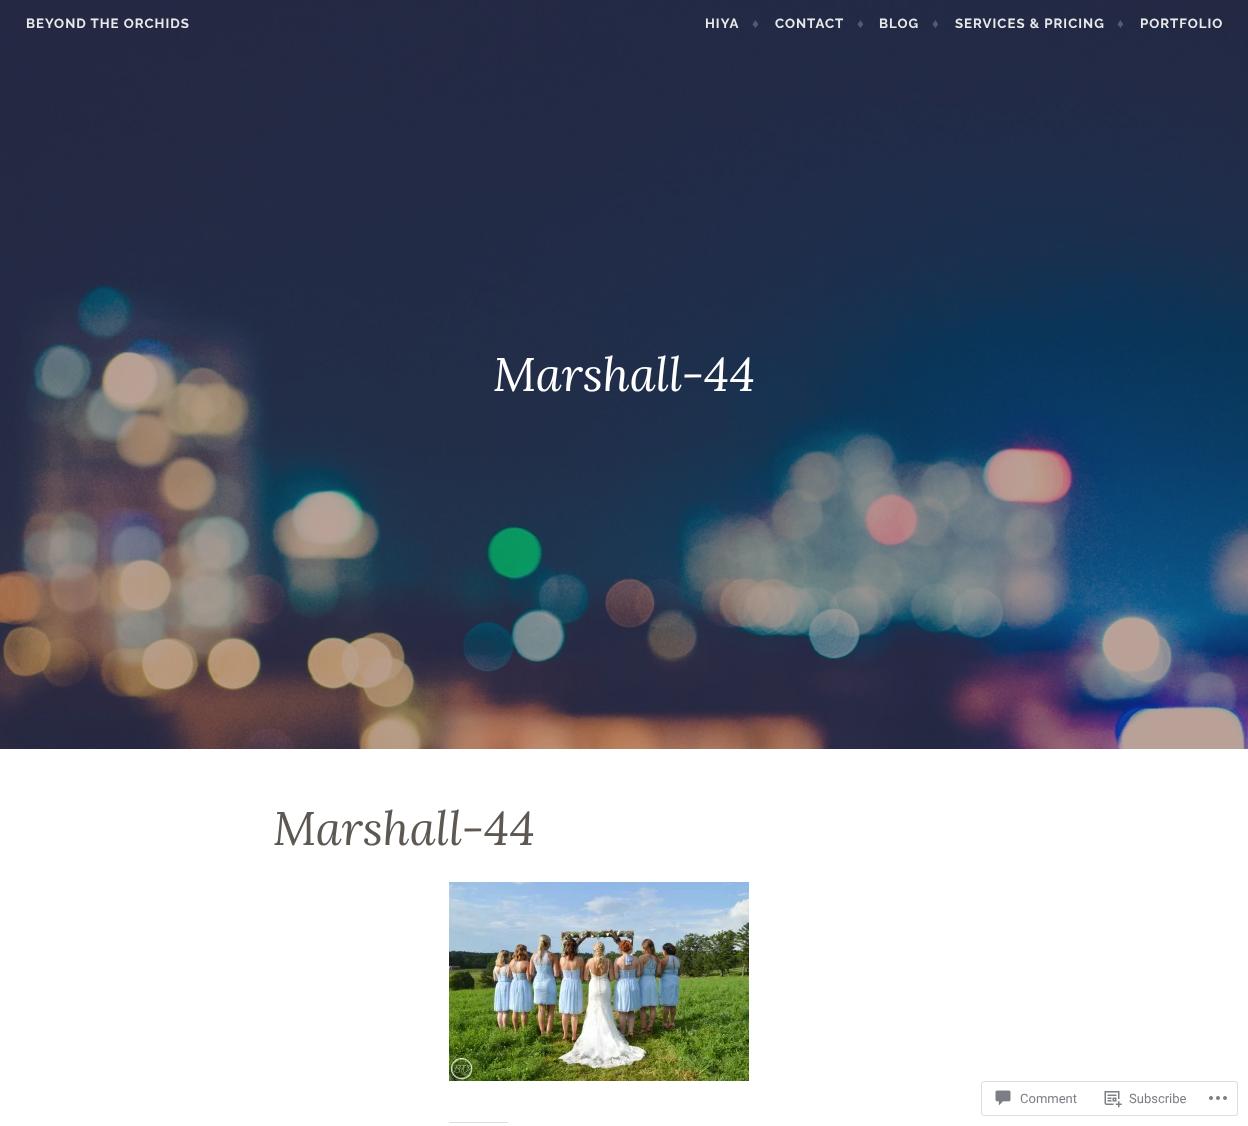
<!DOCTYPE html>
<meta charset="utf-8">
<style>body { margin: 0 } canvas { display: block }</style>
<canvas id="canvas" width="1248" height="1126"></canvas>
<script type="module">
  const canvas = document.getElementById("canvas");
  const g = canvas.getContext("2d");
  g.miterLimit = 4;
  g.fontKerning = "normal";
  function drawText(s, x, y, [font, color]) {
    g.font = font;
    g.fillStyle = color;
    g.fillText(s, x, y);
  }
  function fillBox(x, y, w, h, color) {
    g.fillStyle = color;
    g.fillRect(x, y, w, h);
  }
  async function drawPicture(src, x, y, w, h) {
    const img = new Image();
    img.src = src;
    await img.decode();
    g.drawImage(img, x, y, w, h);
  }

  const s1 = ["bold 13.25px Raleway", "#E8E9EA"];
  const s2 = ["bold 13.25px Liberation Sans", "#545A6E"];
  const s3 = ["italic 47px Lora", "#FFFFFF"];
  const s4 = ["italic 47px Lora", "#5E5853"];
  const s5 = ["13px Roboto", "#7B7F85"];

  fillBox(0, 0, 1248, 1126, "#FFFFFF");
  fillBox(0, 0, 1248, 749, "#1E1C1B");
  await drawPicture("pic1.png", 0, 0, 1248, 749);
  g.letterSpacing = "1px";
  drawText("BEYOND THE ORCHIDS", 26, 28, s1);
  drawText("HIYA", 705, 28, s1);
  drawText("♦", 752, 28, s2);
  drawText("CONTACT", 775, 28, s1);
  drawText("♦", 857, 28, s2);
  drawText("BLOG", 879, 28, s1);
  drawText("♦", 932, 28, s2);
  drawText("SERVICES & PRICING", 955, 28, s1);
  drawText("♦", 1117, 28, s2);
  drawText("PORTFOLIO", 1140, 28, s1);
  g.letterSpacing = "0px";
  drawText("Marshall-44", 493, 391, s3);
  drawText("Marshall-44", 273, 845, s4);
  await drawPicture("pic2.png", 449, 882, 300, 199);
  fillBox(449, 1122, 59, 1, "#DCDCDE");
  g.beginPath();
  g.roundRect(981.5, 1081.5, 256, 34, 2.5);
  g.strokeStyle = "#DDDDDF";
  g.stroke();
  await drawPicture("pic3.png", 995, 1090, 16, 16);
  drawText("Comment", 1020, 1103, s5);
  await drawPicture("pic4.png", 1104, 1091, 18, 17);
  drawText("Subscribe", 1129, 1103, s5);
  await drawPicture("pic5.png", 1209, 1096, 18, 4);
</script>
